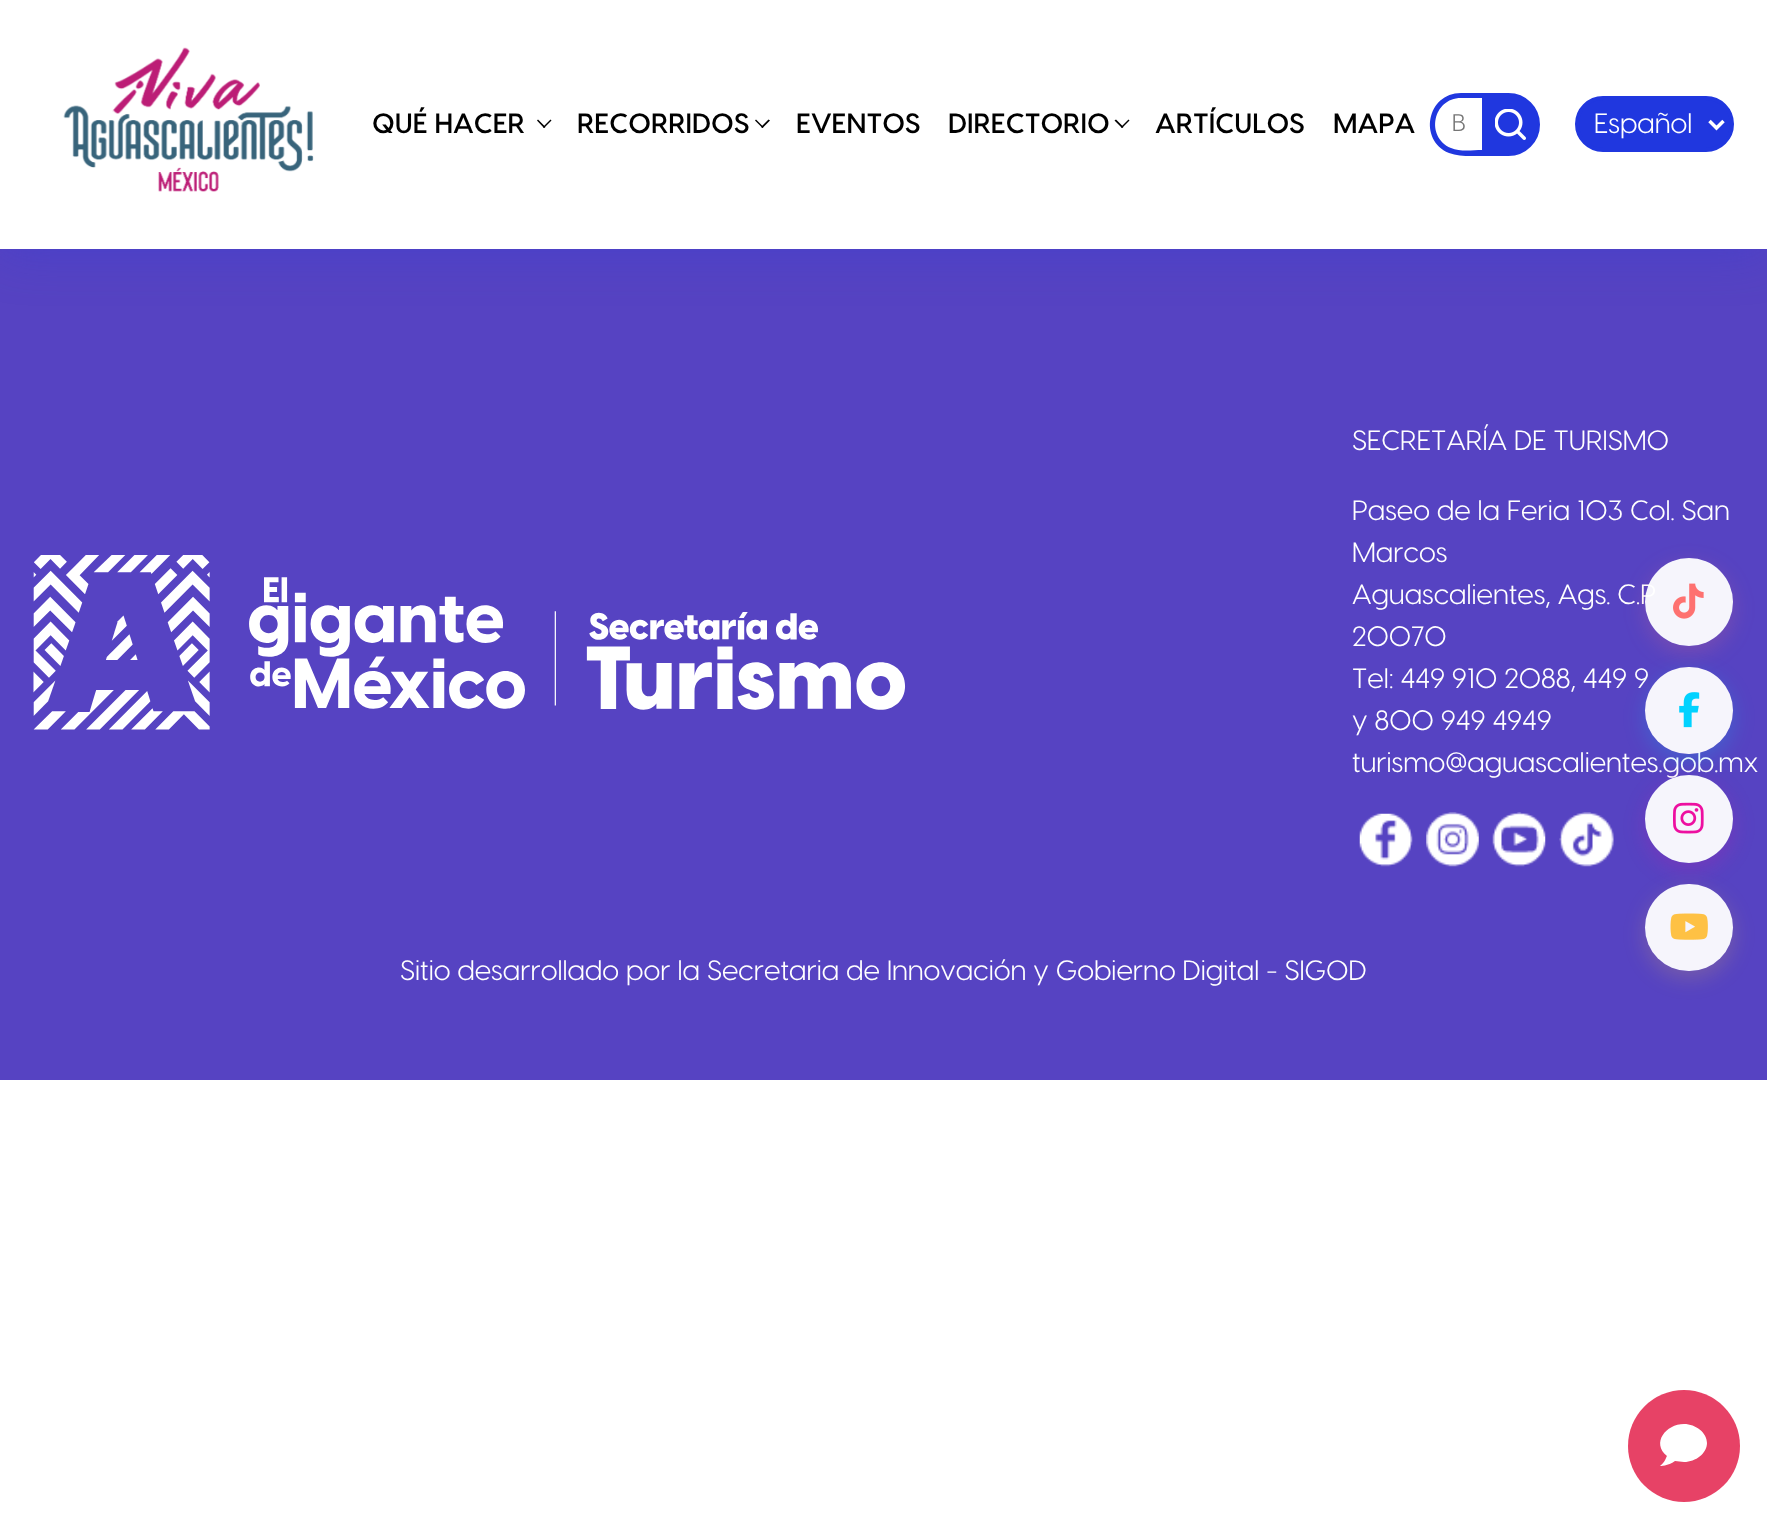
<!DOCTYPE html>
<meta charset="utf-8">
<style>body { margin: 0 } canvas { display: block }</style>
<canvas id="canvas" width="1767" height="1528"></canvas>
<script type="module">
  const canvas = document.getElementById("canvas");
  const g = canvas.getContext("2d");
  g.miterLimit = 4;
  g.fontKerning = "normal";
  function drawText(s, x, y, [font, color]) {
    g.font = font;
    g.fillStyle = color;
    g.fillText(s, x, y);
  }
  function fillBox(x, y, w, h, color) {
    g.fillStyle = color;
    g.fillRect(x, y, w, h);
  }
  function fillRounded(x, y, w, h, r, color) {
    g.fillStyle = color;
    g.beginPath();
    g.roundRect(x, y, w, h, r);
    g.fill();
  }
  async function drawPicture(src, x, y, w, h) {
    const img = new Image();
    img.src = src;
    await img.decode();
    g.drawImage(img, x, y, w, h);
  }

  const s1 = ["600 28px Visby", "#000000"];
  const s2 = ["24px Visby", "#757575"];
  const s3 = ["28px Visby", "#FFFFFF"];

  fillBox(0, 0, 1767, 1528, "#FFFFFF");
  fillBox(0, 249, 1767, 831, "#5643C2");
  g.save();
  g.beginPath();
  g.moveTo(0, 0);
  g.lineTo(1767, 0);
  g.lineTo(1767, 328);
  g.lineTo(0, 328);
  g.closePath();
  g.moveTo(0, 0);
  g.lineTo(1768, 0);
  g.lineTo(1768, 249);
  g.lineTo(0, 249);
  g.closePath();
  g.clip("evenodd");
  g.fillStyle = "rgba(32, 55, 223, 0.33)";
  g.filter = "blur(26px)";
  g.beginPath();
  g.rect(0, 0, 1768, 249);
  g.fill();
  g.filter = "none";
  g.restore();
  fillBox(0, 248, 1767, 1, "rgba(255, 255, 255, 0.9)");
  await drawPicture("pic1.png", 63, 47, 251, 145);
  drawText("QUÉ HACER", 372, 133, s1);
  g.beginPath();
  g.moveTo(550.5, 119.5);
  g.lineTo(551.5, 120.5);
  g.lineTo(544, 128);
  g.lineTo(543, 127);
  g.closePath();
  g.fill();
  g.beginPath();
  g.moveTo(538, 119.5);
  g.lineTo(545.5, 127);
  g.lineTo(544, 128);
  g.lineTo(537, 120.5);
  g.closePath();
  g.fill();
  drawText("RECORRIDOS", 577, 133, s1);
  g.beginPath();
  g.moveTo(768.5, 119.5);
  g.lineTo(770, 120.5);
  g.lineTo(762.5, 128);
  g.lineTo(761, 127);
  g.closePath();
  g.fill();
  g.beginPath();
  g.moveTo(756, 119.5);
  g.lineTo(763.5, 127);
  g.lineTo(762.5, 128);
  g.lineTo(755, 120.5);
  g.closePath();
  g.fill();
  drawText("EVENTOS", 796, 133, s1);
  drawText("DIRECTORIO", 948, 133, s1);
  g.beginPath();
  g.moveTo(1128.5, 119.5);
  g.lineTo(1129.5, 120.5);
  g.lineTo(1122, 128);
  g.lineTo(1121, 127);
  g.closePath();
  g.fill();
  g.beginPath();
  g.moveTo(1116, 119.5);
  g.lineTo(1123.5, 127);
  g.lineTo(1122, 128);
  g.lineTo(1114.5, 120.5);
  g.closePath();
  g.fill();
  drawText("ARTÍCULOS", 1155, 133, s1);
  drawText("MAPA", 1333, 133, s1);
  g.fillStyle = "#2037DF";
  g.beginPath();
  g.moveTo(1461, 93);
  g.lineTo(1482, 93);
  g.lineTo(1482, 156);
  g.bezierCurveTo(1472, 156, 1459, 157, 1449, 153);
  g.bezierCurveTo(1418, 140, 1427, 93, 1461, 93);
  g.closePath();
  g.moveTo(1461, 98);
  g.lineTo(1482, 98);
  g.lineTo(1482, 150);
  g.bezierCurveTo(1473, 150, 1460, 152, 1451, 148);
  g.bezierCurveTo(1425, 137, 1433, 98, 1461, 98);
  g.closePath();
  g.fill("evenodd");
  g.save();
  g.beginPath();
  g.rect(1453, 112, 12, 25);
  g.clip();
  drawText("B", 1452, 131, s2);
  g.restore();
  g.beginPath();
  g.roundRect(1483, 94, 56, 61, [0, 30.5, 30.5, 0]);
  g.fill();
  g.strokeStyle = "#2037DF";
  g.lineWidth = 2;
  g.stroke();
  await drawPicture("pic2.png", 1495, 109, 31, 31);
  g.beginPath();
  g.roundRect(1577, 98, 155, 52, 26);
  g.fill();
  g.lineWidth = 4;
  g.stroke();
  g.beginPath();
  g.moveTo(1709.5, 121);
  g.lineTo(1716.5, 128);
  g.lineTo(1723.5, 121);
  g.strokeStyle = "#FFFFFF";
  g.lineWidth = 3.5;
  g.stroke();
  drawText("Español", 1594, 133, s3);
  await drawPicture("pic3.png", 33, 555, 873, 175);
  drawText("SECRETARÍA DE TURISMO", 1352, 450, s3);
  drawText("Paseo de la Feria 103 Col. San", 1352, 520, s3);
  drawText("Marcos", 1352, 562, s3);
  drawText("Aguascalientes, Ags. C.P", 1352, 604, s3);
  drawText("20070", 1352, 646, s3);
  drawText("Tel: 449 910 2088, 449 9", 1352, 688, s3);
  drawText("y 800 949 4949", 1352, 730, s3);
  drawText("turismo@aguascalientes.gob.mx", 1352, 772, s3);
  await drawPicture("pic4.png", 1359, 813, 54, 54);
  await drawPicture("pic5.png", 1426, 812, 53, 55);
  await drawPicture("pic6.png", 1492, 812, 54, 55);
  await drawPicture("pic7.png", 1559, 812, 55, 55);
  drawText("Sitio desarrollado por la Secretaria de Innovación y Gobierno Digital - SIGOD", 400, 980, s3);
  g.save();
  g.beginPath();
  g.moveTo(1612, 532);
  g.lineTo(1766, 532);
  g.lineTo(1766, 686);
  g.lineTo(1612, 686);
  g.closePath();
  g.moveTo(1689, 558);
  g.bezierCurveTo(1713.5, 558, 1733, 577.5, 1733, 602);
  g.bezierCurveTo(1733, 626.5, 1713.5, 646, 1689, 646);
  g.bezierCurveTo(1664.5, 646, 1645, 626.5, 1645, 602);
  g.bezierCurveTo(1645, 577.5, 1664.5, 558, 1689, 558);
  g.closePath();
  g.clip("evenodd");
  g.fillStyle = "rgba(254, 113, 113, 0.2)";
  g.filter = "blur(10.5px)";
  g.beginPath();
  g.roundRect(1645, 565, 88, 88, 44);
  g.fill();
  g.filter = "none";
  g.restore();
  g.fillStyle = "rgba(255, 255, 255, 0.95)";
  g.beginPath();
  g.arc(1689, 602, 44, 0, Math.PI * 2);
  g.fill();
  await drawPicture("pic8.png", 1673, 583, 31, 36);
  g.save();
  g.beginPath();
  g.moveTo(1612, 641);
  g.lineTo(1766, 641);
  g.lineTo(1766, 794);
  g.lineTo(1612, 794);
  g.closePath();
  g.moveTo(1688.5, 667);
  g.lineTo(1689.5, 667);
  g.bezierCurveTo(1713.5, 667, 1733, 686.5, 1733, 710.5);
  g.bezierCurveTo(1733, 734.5, 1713.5, 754, 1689.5, 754);
  g.lineTo(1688.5, 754);
  g.bezierCurveTo(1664.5, 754, 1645, 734.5, 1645, 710.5);
  g.bezierCurveTo(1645, 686.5, 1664.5, 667, 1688.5, 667);
  g.closePath();
  g.clip("evenodd");
  g.fillStyle = "rgba(1, 210, 255, 0.2)";
  g.filter = "blur(10.5px)";
  g.beginPath();
  g.roundRect(1645, 674, 88, 87, 43.5);
  g.fill();
  g.filter = "none";
  g.restore();
  fillRounded(1645, 667, 88, 87, 43.5, "rgba(255, 255, 255, 0.95)");
  await drawPicture("pic9.png", 1679, 692, 21, 36);
  g.save();
  g.beginPath();
  g.moveTo(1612, 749);
  g.lineTo(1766, 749);
  g.lineTo(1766, 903);
  g.lineTo(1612, 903);
  g.closePath();
  g.moveTo(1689, 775);
  g.bezierCurveTo(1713.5, 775, 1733, 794.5, 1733, 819);
  g.bezierCurveTo(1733, 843.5, 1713.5, 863, 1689, 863);
  g.bezierCurveTo(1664.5, 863, 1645, 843.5, 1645, 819);
  g.bezierCurveTo(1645, 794.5, 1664.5, 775, 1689, 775);
  g.closePath();
  g.clip("evenodd");
  g.fillStyle = "rgba(237, 15, 160, 0.2)";
  g.filter = "blur(10.5px)";
  g.beginPath();
  g.roundRect(1645, 782, 88, 88, 44);
  g.fill();
  g.filter = "none";
  g.restore();
  g.beginPath();
  g.arc(1689, 819, 44, 0, Math.PI * 2);
  g.fill();
  await drawPicture("pic10.png", 1673, 802, 31, 32);
  g.save();
  g.beginPath();
  g.moveTo(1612, 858);
  g.lineTo(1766, 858);
  g.lineTo(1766, 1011);
  g.lineTo(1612, 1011);
  g.closePath();
  g.moveTo(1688.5, 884);
  g.lineTo(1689.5, 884);
  g.bezierCurveTo(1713.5, 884, 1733, 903.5, 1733, 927.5);
  g.bezierCurveTo(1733, 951.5, 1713.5, 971, 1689.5, 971);
  g.lineTo(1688.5, 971);
  g.bezierCurveTo(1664.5, 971, 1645, 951.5, 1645, 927.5);
  g.bezierCurveTo(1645, 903.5, 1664.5, 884, 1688.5, 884);
  g.closePath();
  g.clip("evenodd");
  g.fillStyle = "rgba(254, 193, 68, 0.2)";
  g.filter = "blur(10.5px)";
  g.beginPath();
  g.roundRect(1645, 891, 88, 87, 43.5);
  g.fill();
  g.filter = "none";
  g.restore();
  fillRounded(1645, 884, 88, 87, 43.5, "rgba(255, 255, 255, 0.95)");
  await drawPicture("pic11.png", 1670, 913, 38, 27);
  g.fillStyle = "#E74266";
  g.beginPath();
  g.arc(1684, 1446, 56, 0, Math.PI * 2);
  g.fill();
  g.fillStyle = "#FFFFFF";
  g.beginPath();
  g.moveTo(1684, 1424);
  g.bezierCurveTo(1696, 1424, 1707, 1433, 1707, 1443);
  g.bezierCurveTo(1707, 1453, 1696, 1462, 1684, 1462);
  g.bezierCurveTo(1681, 1462, 1678, 1461, 1675, 1461);
  g.bezierCurveTo(1668, 1466, 1660, 1466, 1660, 1466);
  g.bezierCurveTo(1666, 1461, 1666, 1457, 1667, 1456);
  g.bezierCurveTo(1651, 1443, 1666, 1424, 1684, 1424);
  g.fill();
</script>
